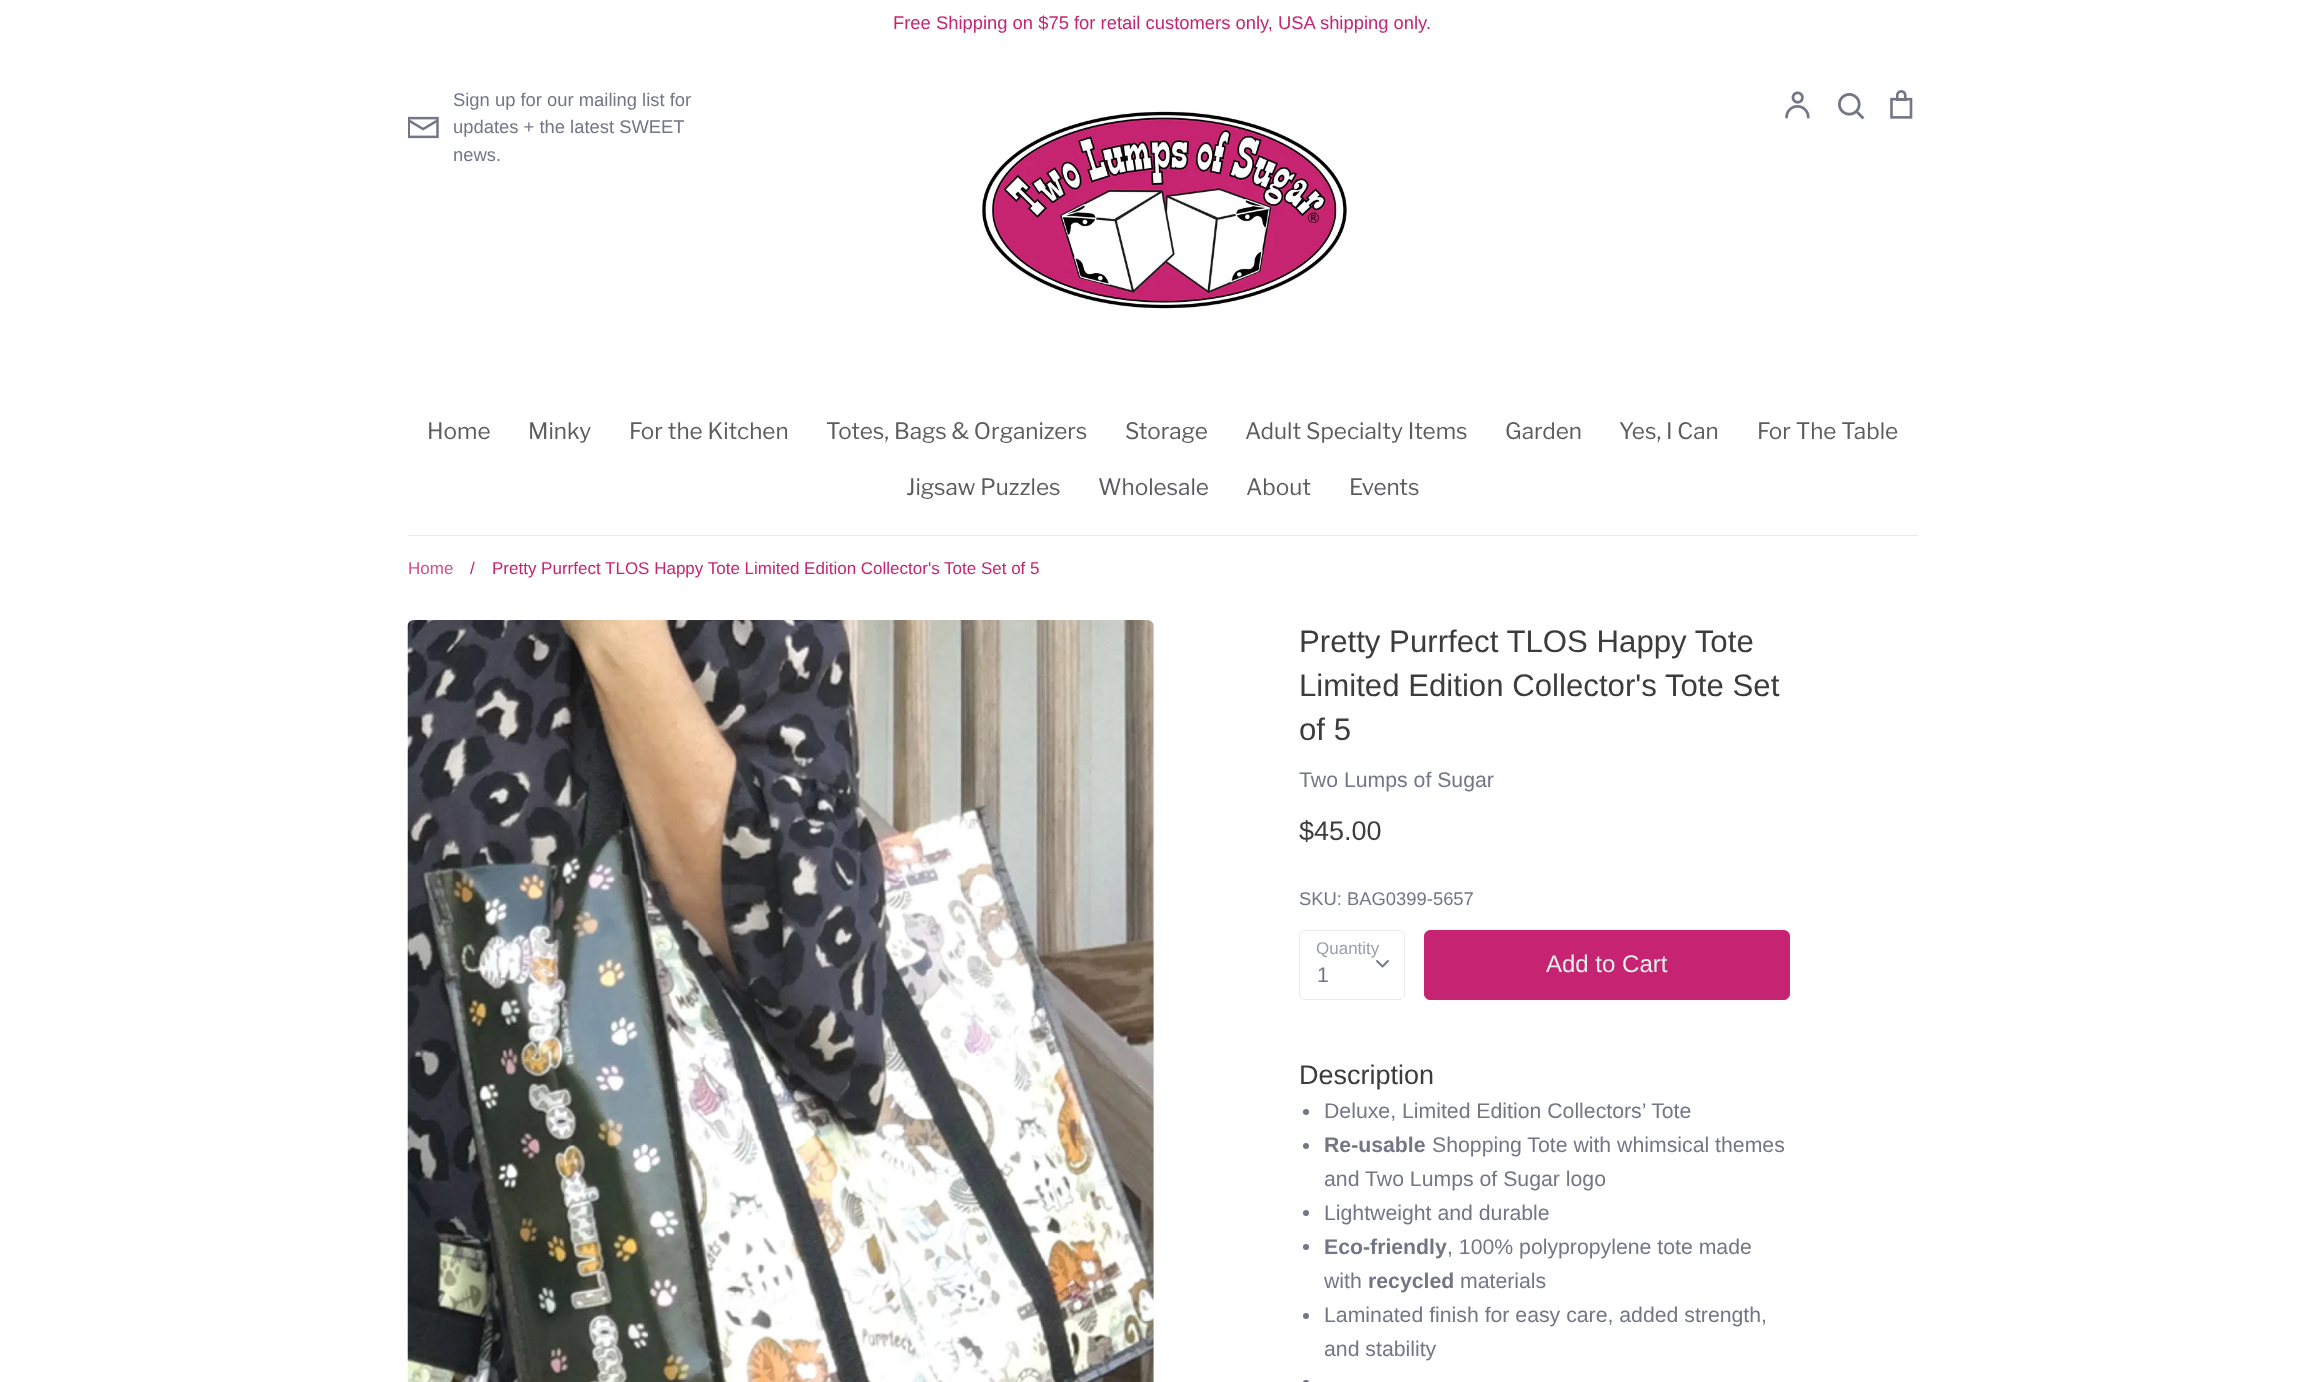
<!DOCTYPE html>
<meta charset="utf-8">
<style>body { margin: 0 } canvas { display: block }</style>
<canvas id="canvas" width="2324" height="1382"></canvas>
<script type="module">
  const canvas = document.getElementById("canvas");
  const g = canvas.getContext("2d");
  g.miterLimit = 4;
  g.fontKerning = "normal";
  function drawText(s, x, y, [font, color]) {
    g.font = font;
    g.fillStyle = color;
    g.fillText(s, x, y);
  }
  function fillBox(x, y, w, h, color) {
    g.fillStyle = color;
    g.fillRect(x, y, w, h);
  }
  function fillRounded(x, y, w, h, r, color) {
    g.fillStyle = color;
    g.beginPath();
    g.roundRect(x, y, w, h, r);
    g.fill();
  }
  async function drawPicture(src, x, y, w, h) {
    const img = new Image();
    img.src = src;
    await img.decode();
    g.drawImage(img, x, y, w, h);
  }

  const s1 = ["18.4px Arimo", "#C62473"];
  const s2 = ["18.4px Arimo", "#727685"];
  const s3 = ["22.5px Libre Franklin", "#5C5C5F"];
  const s4 = ["17px Arimo", "#D1508F"];
  const s5 = ["17px Arimo", "#C62473"];
  const s6 = ["31.2px Arimo", "#3C3C3C"];
  const s7 = ["21.25px Arimo", "#727685"];
  const s8 = ["27px Arimo", "#3C3C3C"];
  const s9 = ["17px Arimo", "#9C9FAA"];
  const s10 = ["24px Arimo", "#E0F2E8"];
  const s11 = ["bold 21.25px Arimo", "#727685"];

  fillBox(0, 0, 2324, 1382, "#FFFFFF");
  drawText("Free Shipping on $75 for retail customers only, USA shipping only.", 893, 29, s1);
  await drawPicture("pic1.png", 408, 116, 31, 23);
  drawText("Sign up for our mailing list for", 453, 106, s2);
  drawText("updates + the latest SWEET", 453, 133, s2);
  drawText("news.", 453, 161, s2);
  await drawPicture("pic2.png", 982, 111, 365, 198);
  await drawPicture("pic3.png", 1785, 91, 25, 28);
  await drawPicture("pic4.png", 1838, 93, 27, 27);
  await drawPicture("pic5.png", 1890, 90, 23, 29);
  fillBox(408, 535, 1510, 1, "#EAEAED");
  drawText("Home", 427, 439, s3);
  drawText("Minky", 528, 439, s3);
  drawText("For the Kitchen", 629, 439, s3);
  drawText("Totes, Bags & Organizers", 826, 439, s3);
  drawText("Storage", 1125, 439, s3);
  drawText("Adult Specialty Items", 1245, 439, s3);
  drawText("Garden", 1505, 439, s3);
  drawText("Yes, I Can", 1619, 439, s3);
  drawText("For The Table", 1757, 439, s3);
  drawText("Jigsaw Puzzles", 906, 495, s3);
  drawText("Wholesale", 1098, 495, s3);
  drawText("About", 1246, 495, s3);
  drawText("Events", 1349, 495, s3);
  drawText("Home", 408, 574, s4);
  drawText("/", 470, 574, s5);
  drawText("Pretty Purrfect TLOS Happy Tote Limited Edition Collector's Tote Set of 5", 492, 574, s5);
  await drawPicture("pic6.png", 407, 620, 747, 762);
  drawText("Pretty Purrfect TLOS Happy Tote", 1299, 652, s6);
  drawText("Limited Edition Collector's Tote Set", 1299, 696, s6);
  drawText("of 5", 1299, 740, s6);
  drawText("Two Lumps of Sugar", 1299, 787, s7);
  drawText("$45.00", 1299, 840, s8);
  drawText("SKU: BAG0399-5657", 1299, 905, s2);
  drawText("Quantity", 1316, 954, s9);
  g.beginPath();
  g.roundRect(1299.5, 930.5, 105, 69, 5.5);
  g.strokeStyle = "#EAEAED";
  g.stroke();
  g.beginPath();
  g.moveTo(1377, 961);
  g.lineTo(1382.5, 966.5);
  g.lineTo(1388, 961);
  g.strokeStyle = "#727685";
  g.lineWidth = 1.9;
  g.lineCap = "round";
  g.lineJoin = "round";
  g.stroke();
  drawText("1", 1317, 982, s7);
  g.fillStyle = "#C62473";
  g.beginPath();
  g.roundRect(1424.5, 930.5, 365, 69, 5.5);
  g.fill();
  g.strokeStyle = "#C62473";
  g.lineWidth = 1;
  g.lineJoin = "miter";
  g.stroke();
  drawText("Add to Cart", 1546, 972, s10);
  drawText("Description", 1299, 1084, s8);
  g.fillStyle = "#727685";
  g.beginPath();
  g.arc(1306, 1112, 3, 0, Math.PI * 2);
  g.fill();
  drawText("Deluxe, Limited Edition Collectors’ Tote", 1324, 1118, s7);
  g.beginPath();
  g.arc(1306, 1146, 3, 0, Math.PI * 2);
  g.fill();
  drawText("Re-usable", 1324, 1152, s11);
  drawText("Shopping Tote with whimsical themes", 1432, 1152, s7);
  drawText("and Two Lumps of Sugar logo", 1324, 1186, s7);
  g.beginPath();
  g.arc(1306, 1213, 3, 0, Math.PI * 2);
  g.fill();
  drawText("Lightweight and durable", 1324, 1220, s7);
  g.beginPath();
  g.arc(1306, 1247, 3, 0, Math.PI * 2);
  g.fill();
  drawText("Eco-friendly", 1324, 1254, s11);
  drawText(", 100% polypropylene tote made", 1447, 1254, s7);
  drawText("with", 1324, 1288, s7);
  drawText("recycled", 1368, 1288, s11);
  drawText("materials", 1460, 1288, s7);
  g.beginPath();
  g.arc(1306, 1316, 3, 0, Math.PI * 2);
  g.fill();
  drawText("Laminated finish for easy care, added strength,", 1324, 1322, s7);
  drawText("and stability", 1324, 1356, s7);
  fillRounded(1303, 1380, 6, 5, 3, "#727685");
</script>
